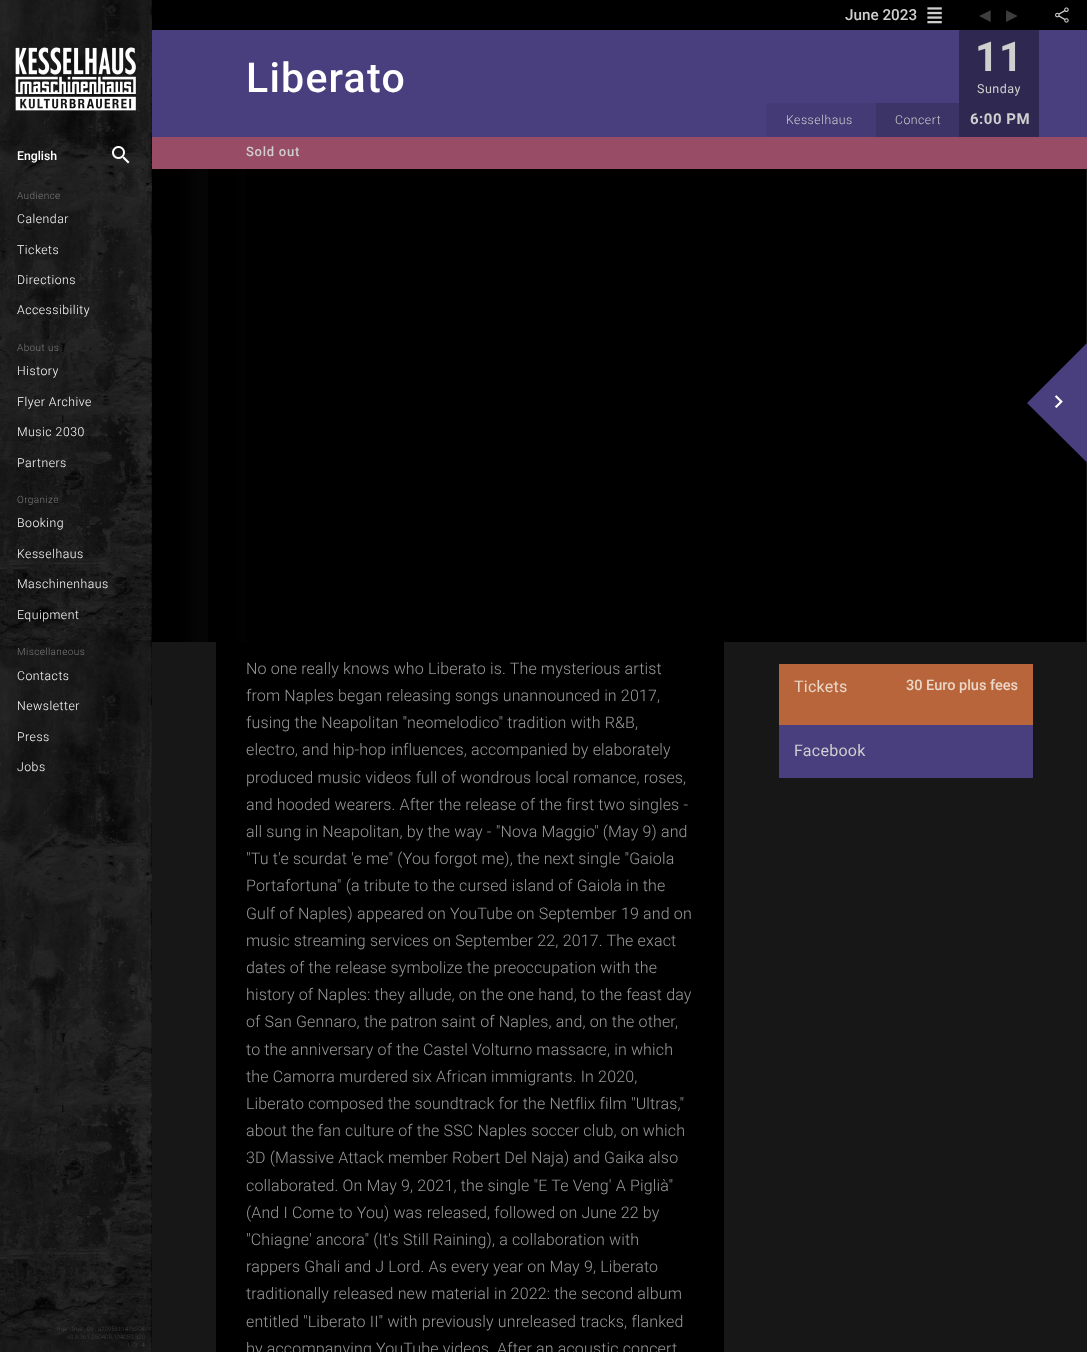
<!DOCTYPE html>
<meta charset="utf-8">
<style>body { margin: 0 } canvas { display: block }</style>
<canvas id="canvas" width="1087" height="1352"></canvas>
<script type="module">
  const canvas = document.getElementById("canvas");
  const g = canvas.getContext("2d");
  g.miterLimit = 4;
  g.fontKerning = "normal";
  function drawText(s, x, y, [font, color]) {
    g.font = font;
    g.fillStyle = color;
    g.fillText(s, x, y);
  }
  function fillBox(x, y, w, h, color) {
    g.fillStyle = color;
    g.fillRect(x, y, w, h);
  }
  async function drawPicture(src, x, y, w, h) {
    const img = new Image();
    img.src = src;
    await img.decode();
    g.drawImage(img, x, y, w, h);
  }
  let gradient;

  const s1 = ["500 12.25px Roboto", "#FFFFFF"];
  const s2 = ["300 10px Roboto", "#797979"];
  const s3 = ["300 12.25px Roboto", "#FFFFFF"];
  const s4 = ["300 6.1px Roboto", "#444444"];
  const s5 = ["500 15.25px Roboto", "#CFCFCF"];
  const s6 = ["15.25px DejaVu Sans", "#3E3E3E"];
  const s7 = ["500 41px Roboto", "#FFFFFF"];
  const s8 = ["bold 41px Roboto", "#CFCFCF"];
  const s9 = ["12.5px Roboto", "#CFCFCF"];
  const s10 = ["bold 15px Roboto", "#CFCFCF"];
  const s11 = ["300 12.25px Roboto", "#CFCFCF"];
  const s12 = ["500 13px Roboto", "#CFCFCF"];
  const s13 = ["300 16px Roboto", "#999999"];
  const s14 = ["16px Roboto", "#EAD7C7"];
  const s15 = ["500 14.5px Roboto", "#EAD7C7"];
  const s16 = ["16px Roboto", "#CFCFCF"];

  fillBox(0, 0, 1087, 1352, "#171717");
  await drawPicture("pic1.png", 0, 0, 152, 1352);
  await drawPicture("pic2.png", 15, 47, 121, 64);
  drawText("English", 17, 160, s1);
  await drawPicture("pic3.png", 112, 146, 18, 18);
  g.letterSpacing = "0.4px";
  drawText("Audience", 17, 199, s2);
  g.letterSpacing = "0.5px";
  drawText("Calendar", 17, 223, s3);
  drawText("Tickets", 17, 254, s3);
  drawText("Directions", 17, 284, s3);
  drawText("Accessibility", 17, 314, s3);
  g.letterSpacing = "0.4px";
  drawText("About us", 17, 351, s2);
  g.letterSpacing = "0.5px";
  drawText("History", 17, 375, s3);
  drawText("Flyer Archive", 17, 406, s3);
  drawText("Music 2030", 17, 436, s3);
  drawText("Partners", 17, 467, s3);
  g.letterSpacing = "0.4px";
  drawText("Organize", 17, 503, s2);
  g.letterSpacing = "0.5px";
  drawText("Booking", 17, 527, s3);
  drawText("Kesselhaus", 17, 558, s3);
  drawText("Maschinenhaus", 17, 588, s3);
  drawText("Equipment", 17, 619, s3);
  g.letterSpacing = "0.4px";
  drawText("Miscellaneous", 17, 655, s2);
  g.letterSpacing = "0.5px";
  drawText("Contacts", 17, 680, s3);
  drawText("Newsletter", 17, 710, s3);
  drawText("Press", 17, 741, s3);
  drawText("Jobs", 17, 771, s3);
  g.letterSpacing = "0px";
  drawText("true . true . 0s . a209581147520s", 57, 1331, s4);
  drawText("v0.8.361-250408.104059.520", 67, 1339, s4);
  drawText("173 : 4", 127, 1347, s4);
  fillBox(152, 0, 935, 30, "#000000");
  drawText("June 2023", 845, 20, s5);
  await drawPicture("pic4.png", 927, 7, 15, 17);
  drawText("◀︎", 979, 20, s6);
  drawText("▶︎", 1006, 20, s6);
  await drawPicture("pic5.png", 1055, 7, 14, 16);
  fillBox(152, 30, 935, 107, "#493E7E");
  g.letterSpacing = "1.25px";
  drawText("Liberato", 246, 92, s7);
  fillBox(959, 30, 80, 107, "#2F2851");
  g.letterSpacing = "0.5px";
  drawText("11", 975, 71, s8);
  drawText("Sunday", 977, 93, s9);
  drawText("6:00 PM", 970, 124, s10);
  fillBox(766, 103, 110, 34, "#443A75");
  drawText("Kesselhaus", 786, 124, s11);
  fillBox(876, 103, 83, 34, "#3C3367");
  drawText("Concert", 895, 124, s11);
  fillBox(152, 137, 935, 32, "#994C66");
  g.letterSpacing = "0.75px";
  drawText("Sold out", 246, 156, s12);
  gradient = g.createLinearGradient(208, 197, 152, 197);
  gradient.addColorStop(0.12, "#050505");
  gradient.addColorStop(0.55, "#000000");
  g.fillStyle = gradient;
  g.fillRect(152, 169, 56, 473);
  gradient = g.createLinearGradient(264, 197, 208, 197);
  gradient.addColorStop(0.12, "#050505");
  gradient.addColorStop(0.55, "#000000");
  g.fillStyle = gradient;
  g.fillRect(208, 169, 38, 473);
  fillBox(246, 169, 840, 473, "#000000");
  g.fillStyle = "#493E7E";
  g.beginPath();
  g.moveTo(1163, 267);
  g.lineTo(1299, 403);
  g.lineTo(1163, 538);
  g.lineTo(1027, 403);
  g.closePath();
  g.fill();
  await drawPicture("pic6.png", 1054, 395, 9, 13);
  fillBox(216, 642, 508, 710, "#000000");
  g.letterSpacing = "0.15px";
  drawText("No one really knows who Liberato is. The mysterious artist", 246, 674, s13);
  drawText("from Naples began releasing songs unannounced in 2017,", 246, 701, s13);
  drawText("fusing the Neapolitan \"neomelodico\" tradition with R&B,", 246, 728, s13);
  drawText("electro, and hip-hop influences, accompanied by elaborately", 246, 755, s13);
  drawText("produced music videos full of wondrous local romance, roses,", 246, 783, s13);
  drawText("and hooded wearers. After the release of the first two singles -", 246, 810, s13);
  drawText("all sung in Neapolitan, by the way - \"Nova Maggio\" (May 9) and", 246, 837, s13);
  drawText("\"Tu t'e scurdat 'e me\" (You forgot me), the next single \"Gaiola", 246, 864, s13);
  drawText("Portafortuna\" (a tribute to the cursed island of Gaiola in the", 246, 891, s13);
  drawText("Gulf of Naples) appeared on YouTube on September 19 and on", 246, 919, s13);
  drawText("music streaming services on September 22, 2017. The exact", 246, 946, s13);
  drawText("dates of the release symbolize the preoccupation with the", 246, 973, s13);
  drawText("history of Naples: they allude, on the one hand, to the feast day", 246, 1000, s13);
  drawText("of San Gennaro, the patron saint of Naples, and, on the other,", 246, 1027, s13);
  drawText("to the anniversary of the Castel Volturno massacre, in which", 246, 1055, s13);
  drawText("the Camorra murdered six African immigrants. In 2020,", 246, 1082, s13);
  drawText("Liberato composed the soundtrack for the Netflix film \"Ultras,\"", 246, 1109, s13);
  drawText("about the fan culture of the SSC Naples soccer club, on which", 246, 1136, s13);
  drawText("3D (Massive Attack member Robert Del Naja) and Gaika also", 246, 1163, s13);
  drawText("collaborated. On May 9, 2021, the single \"E Te Veng' A Piglià\"", 246, 1191, s13);
  drawText("(And I Come to You) was released, followed on June 22 by", 246, 1218, s13);
  drawText("\"Chiagne' ancora\" (It's Still Raining), a collaboration with", 246, 1245, s13);
  drawText("rappers Ghali and J Lord. As every year on May 9, Liberato", 246, 1272, s13);
  drawText("traditionally released new material in 2022: the second album", 246, 1299, s13);
  drawText("entitled \"Liberato II\" with previously unreleased tracks, flanked", 246, 1327, s13);
  drawText("by accompanying YouTube videos. After an acoustic concert", 246, 1354, s13);
  fillBox(779, 664, 254, 61, "#B8653B");
  g.letterSpacing = "0.25px";
  drawText("Tickets", 794, 692, s14);
  g.letterSpacing = "0px";
  drawText("30 Euro plus fees", 906, 690, s15);
  fillBox(779, 725, 254, 53, "#493E7E");
  g.letterSpacing = "0.25px";
  drawText("Facebook", 794, 756, s16);
</script>
